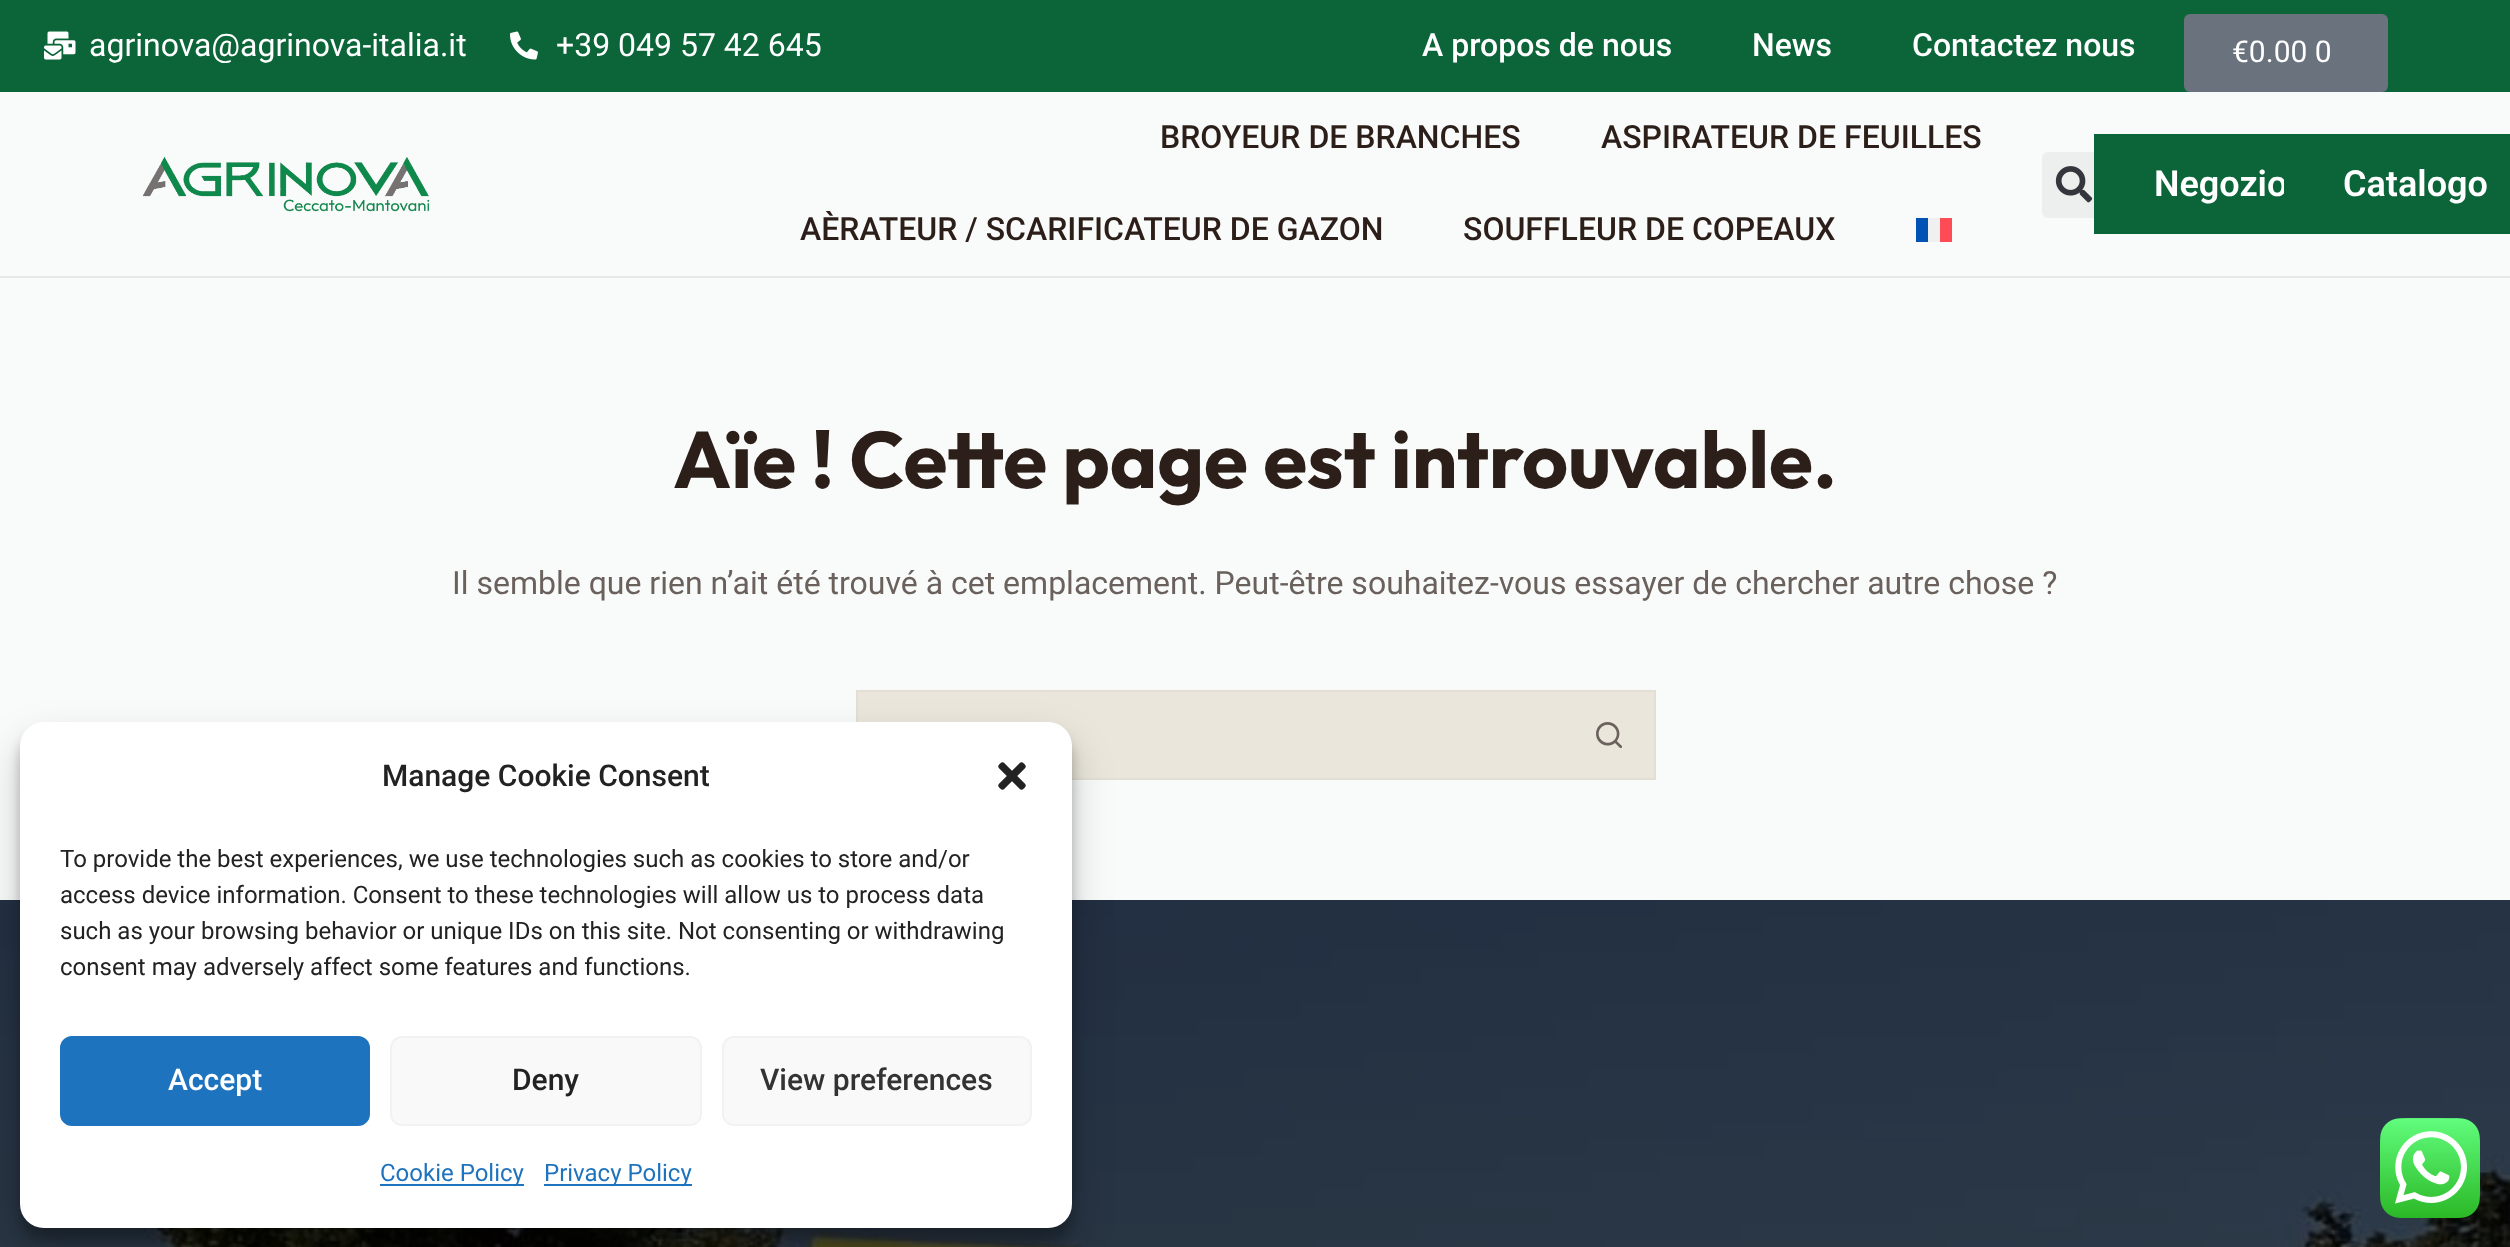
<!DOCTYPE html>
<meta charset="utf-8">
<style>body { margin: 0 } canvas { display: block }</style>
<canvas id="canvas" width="2510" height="1247"></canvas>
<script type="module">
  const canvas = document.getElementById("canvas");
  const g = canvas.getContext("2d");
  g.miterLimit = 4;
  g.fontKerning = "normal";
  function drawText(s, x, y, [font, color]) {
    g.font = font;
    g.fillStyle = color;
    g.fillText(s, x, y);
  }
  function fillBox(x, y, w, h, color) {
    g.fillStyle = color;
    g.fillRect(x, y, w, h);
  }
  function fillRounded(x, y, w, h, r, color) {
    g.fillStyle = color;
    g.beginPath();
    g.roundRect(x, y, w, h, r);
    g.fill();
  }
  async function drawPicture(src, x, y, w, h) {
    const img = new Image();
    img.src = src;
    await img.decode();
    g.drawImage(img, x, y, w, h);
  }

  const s1 = ["32px Roboto", "#FFFFFF"];
  const s2 = ["500 32px Roboto", "#FFFFFF"];
  const s3 = ["30px Roboto", "#FFFFFF"];
  const s4 = ["500 32px Roboto", "#2C1E18"];
  const s5 = ["600 36px Roboto", "#FFFFFF"];
  const s6 = ["bold 80px Outfit", "#2C1E18"];
  const s7 = ["32px Roboto", "#6A615D"];
  const s8 = ["500 30px Roboto", "#222222"];
  const s9 = ["24px Roboto", "#222222"];
  const s10 = ["500 30px Roboto", "#FFFFFF"];
  const s11 = ["500 30px Roboto", "#333333"];
  const s12 = ["24px Roboto", "#1E73BE"];

  fillBox(0, 0, 2510, 1247, "#F9FBFA");
  fillBox(0, 0, 2510, 92, "#0B6539");
  await drawPicture("pic1.png", 44, 31, 32, 29);
  drawText("agrinova@agrinova-italia.it", 89, 56, s1);
  await drawPicture("pic2.png", 510, 31, 28, 29);
  drawText("+39 049 57 42 645", 556, 56, s1);
  drawText("A propos de nous", 1422, 56, s2);
  drawText("News", 1752, 56, s2);
  drawText("Contactez nous", 1912, 56, s2);
  fillRounded(2184, 14, 204, 78, 6, "#69727D");
  drawText("€0.00 0", 2232, 62, s3);
  fillBox(0, 276, 2510, 2, "#E7E8E9");
  await drawPicture("pic3.png", 142, 157, 288, 55);
  drawText("BROYEUR DE BRANCHES", 1160, 148, s4);
  drawText("ASPIRATEUR DE FEUILLES", 1601, 148, s4);
  drawText("AÈRATEUR / SCARIFICATEUR DE GAZON", 800, 240, s4);
  drawText("SOUFFLEUR DE COPEAUX", 1463, 240, s4);
  fillBox(1928, 218, 12, 24, "#F0F0F0");
  fillBox(1940, 218, 12, 24, "#FF4B55");
  fillBox(1916, 218, 12, 24, "#0052B4");
  fillRounded(2042, 152, 66, 66, 6, "#EDEEEE");
  await drawPicture("pic4.png", 2055, 166, 38, 37);
  fillBox(2094, 134, 190, 100, "#0B6539");
  drawText("Negozio", 2154, 196, s5);
  fillBox(2284, 134, 226, 100, "#0B6539");
  drawText("Catalogo", 2343, 196, s5);
  drawText("Aïe ! Cette page est introuvable.", 673, 488, s6);
  drawText("Il semble que rien n’ait été trouvé à cet emplacement. Peut-être souhaitez-vous essayer de chercher autre chose ?", 452, 594, s7);
  fillBox(858, 692, 796, 86, "#EAE6DB");
  fillBox(856, 690, 800, 2, "#E3DFD5");
  fillBox(1072, 778, 494, 2, "#E3DFD5");
  fillBox(856, 690, 2, 32, "#E3DFD5");
  fillBox(1654, 690, 2, 90, "#E3DFD5");
  fillBox(1566, 778, 90, 2, "#E3DFD5");
  await drawPicture("pic5.png", 1596, 722, 26, 26);
  await drawPicture("pic6.png", 0, 900, 2510, 347);
  g.fillStyle = "rgba(0, 0, 0, 0.23)";
  g.filter = "blur(6px)";
  g.beginPath();
  g.roundRect(20, 734, 1052, 506, 24);
  g.fill();
  g.filter = "none";
  g.fillStyle = "rgba(0, 0, 0, 0.19)";
  g.filter = "blur(20px)";
  g.beginPath();
  g.roundRect(20, 742, 1052, 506, 24);
  g.fill();
  g.filter = "none";
  fillRounded(20, 722, 1052, 506, 24, "#FFFFFF");
  drawText("Manage Cookie Consent", 382, 786, s8);
  await drawPicture("pic7.png", 998, 762, 28, 28);
  drawText("To provide the best experiences, we use technologies such as cookies to store and/or", 60, 867, s9);
  drawText("access device information. Consent to these technologies will allow us to process data", 60, 903, s9);
  drawText("such as your browsing behavior or unique IDs on this site. Not consenting or withdrawing", 60, 939, s9);
  drawText("consent may adversely affect some features and functions.", 60, 975, s9);
  g.fillStyle = "#1E73BE";
  g.beginPath();
  g.roundRect(61, 1037, 308, 88, 11);
  g.fill();
  g.strokeStyle = "#1E73BE";
  g.lineWidth = 2;
  g.stroke();
  drawText("Accept", 168, 1090, s10);
  g.fillStyle = "#F9F9F9";
  g.beginPath();
  g.roundRect(391, 1037, 310, 88, 11);
  g.fill();
  g.strokeStyle = "#F2F2F2";
  g.stroke();
  drawText("Deny", 512, 1090, s8);
  g.fillStyle = "#F9F9F9";
  g.beginPath();
  g.roundRect(723, 1037, 308, 88, 11);
  g.fill();
  g.stroke();
  drawText("View preferences", 760, 1090, s11);
  fillBox(380, 1184, 144, 2, "#1E73BE");
  drawText("Cookie Policy", 380, 1181, s12);
  fillBox(544, 1184, 148, 2, "#1E73BE");
  drawText("Privacy Policy", 544, 1181, s12);
  await drawPicture("pic8.png", 2380, 1118, 100, 100);
</script>
